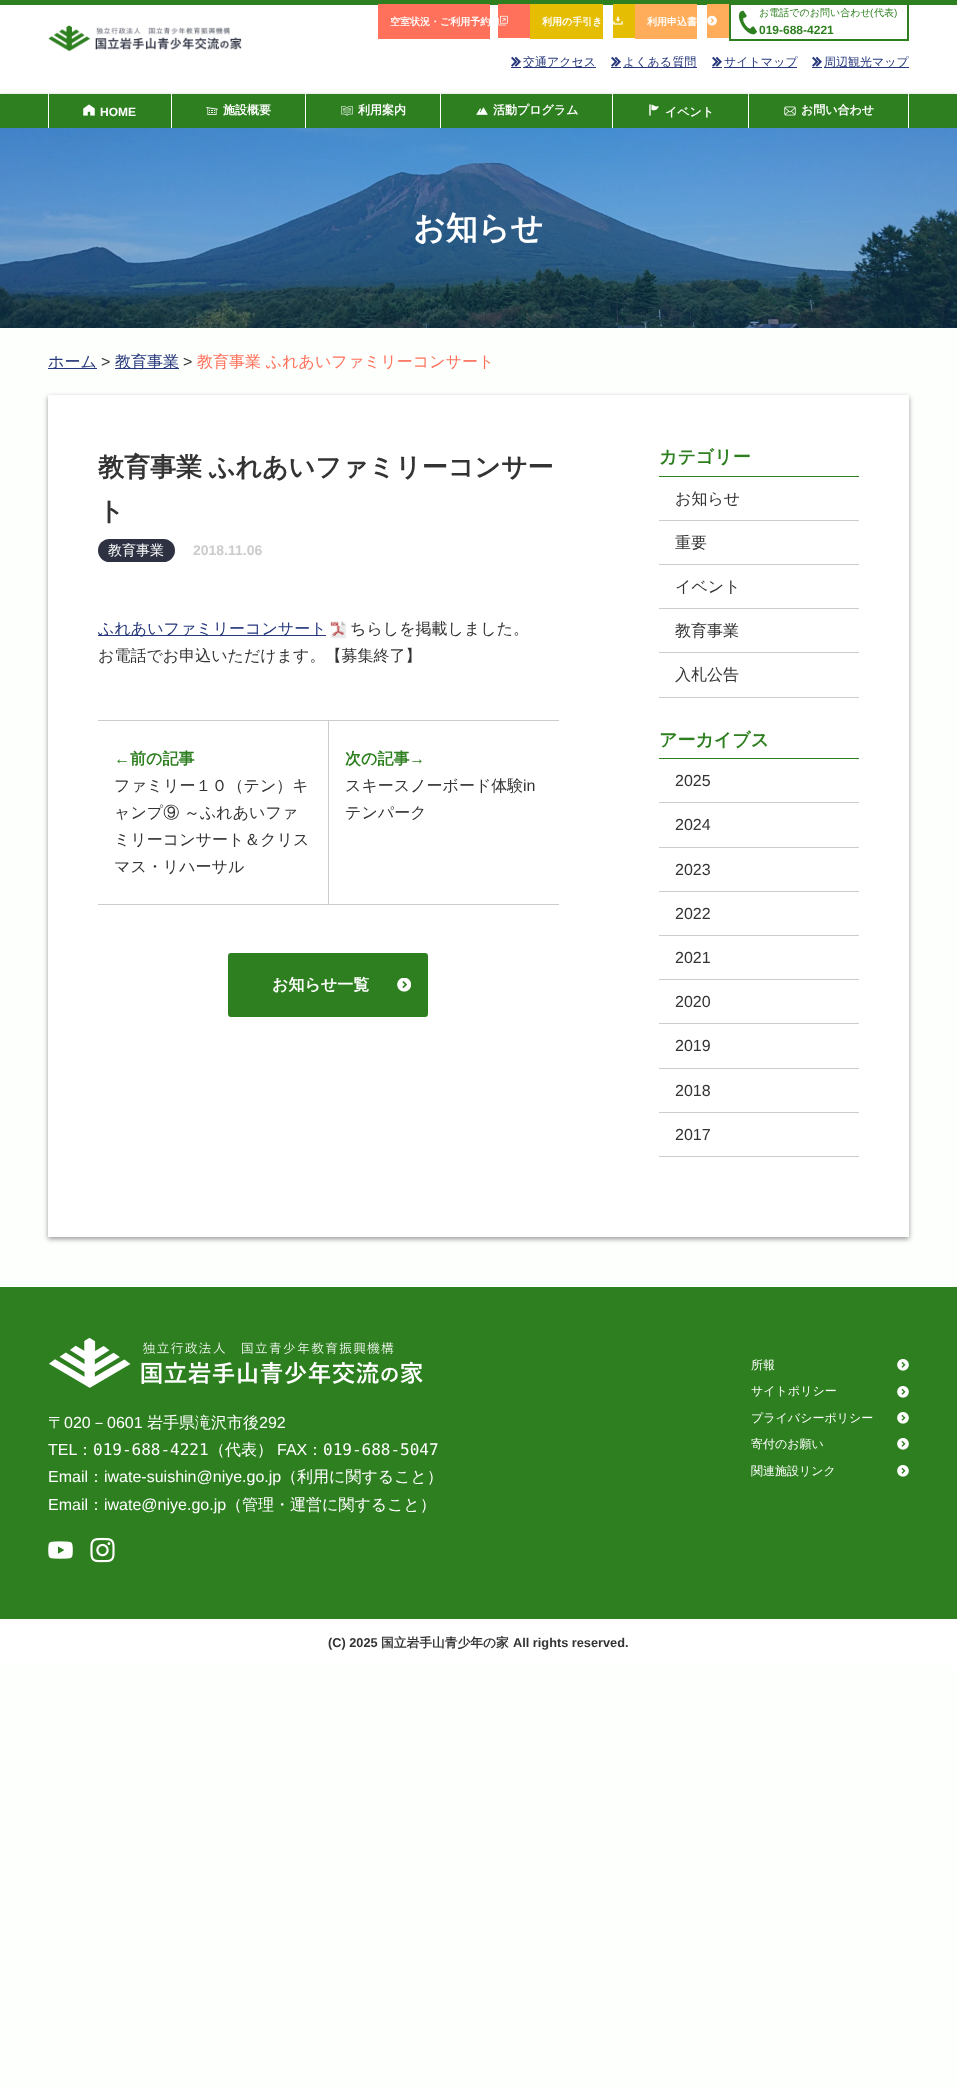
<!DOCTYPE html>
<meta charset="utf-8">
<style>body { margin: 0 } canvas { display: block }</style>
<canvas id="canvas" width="957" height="2087"></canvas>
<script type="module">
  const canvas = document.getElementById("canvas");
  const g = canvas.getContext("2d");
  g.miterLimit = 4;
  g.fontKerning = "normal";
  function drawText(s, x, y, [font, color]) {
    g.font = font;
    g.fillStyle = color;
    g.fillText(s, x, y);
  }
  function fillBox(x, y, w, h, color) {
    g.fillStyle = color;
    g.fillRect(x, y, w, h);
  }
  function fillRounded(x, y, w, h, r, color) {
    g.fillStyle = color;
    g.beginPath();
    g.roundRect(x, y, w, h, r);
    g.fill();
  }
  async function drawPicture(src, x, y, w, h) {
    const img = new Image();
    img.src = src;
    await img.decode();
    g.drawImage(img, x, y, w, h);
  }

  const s1 = ["bold 10px WenQuanYi Zen Hei", "#FFFFFF"];
  const s2 = ["500 10px WenQuanYi Zen Hei", "#2D7F1F"];
  const s3 = ["10px Liberation Sans", "#2D7F1F"];
  const s4 = ["bold 12px Liberation Sans", "#2D7F1F"];
  const s5 = ["500 12px WenQuanYi Zen Hei", "#26377C"];
  const s6 = ["bold 12px Liberation Sans", "#FFFFFF"];
  const s7 = ["bold 12px WenQuanYi Zen Hei", "#FFFFFF"];
  const s8 = ["bold 32px WenQuanYi Zen Hei", "#FFFFFF"];
  const s9 = ["500 16px WenQuanYi Zen Hei", "#26377C"];
  const s10 = ["16px Liberation Sans", "#333333"];
  const s11 = ["500 16px WenQuanYi Zen Hei", "#FF715B"];
  const s12 = ["bold 26px WenQuanYi Zen Hei", "#333333"];
  const s13 = ["500 14px WenQuanYi Zen Hei", "#FFFFFF"];
  const s14 = ["bold 14px Liberation Sans", "#CCCCCC"];
  const s15 = ["500 16px WenQuanYi Zen Hei", "#333333"];
  const s16 = ["bold 16px Liberation Sans", "#2D7F1F"];
  const s17 = ["bold 16px WenQuanYi Zen Hei", "#2D7F1F"];
  const s18 = ["bold 16px WenQuanYi Zen Hei", "#FFFFFF"];
  const s19 = ["bold 18px WenQuanYi Zen Hei", "#2D7F1F"];
  const s20 = ["500 16px WenQuanYi Zen Hei", "#FFFFFF"];
  const s21 = ["16px Liberation Sans", "#FFFFFF"];
  const s22 = ["16px DejaVu Sans Mono", "#FFFFFF"];
  const s23 = ["500 12px WenQuanYi Zen Hei", "#FFFFFF"];
  const s24 = ["bold 12.75px Liberation Sans", "#333333"];
  const s25 = ["bold 12.75px WenQuanYi Zen Hei", "#333333"];

  fillBox(0, 0, 957, 2087, "#FCFFFC");
  fillBox(0, 5, 957, 89, "#FFFFFF");
  fillBox(0, 0, 957, 5, "#2D7F1F");
  await drawPicture("pic1.png", 48, 25, 194, 27);
  fillBox(378, 4, 112, 35, "#FF715B");
  drawText("空室状況・ご利用予約", 390, 25, s1);
  fillBox(498, 4, 32, 34, "#FF715B");
  await drawPicture("pic2.png", 498, 15, 10, 11);
  fillBox(530, 4, 73, 35, "#E5BD03");
  drawText("利用の手引き", 542, 25, s1);
  fillBox(613, 4, 22, 34, "#E5BD03");
  await drawPicture("pic3.png", 613, 16, 10, 9);
  fillBox(635, 4, 62, 35, "#FFAD5B");
  drawText("利用申込書", 647, 25, s1);
  fillBox(707, 4, 22, 34, "#FFAD5B");
  await drawPicture("pic4.png", 707, 15, 10, 11);
  g.strokeStyle = "#2D7F1F";
  g.lineWidth = 2;
  g.strokeRect(730, 1, 178, 39);
  await drawPicture("pic5.png", 738, 10, 19, 25);
  drawText("お電話でのお問い合わせ", 759, 16, s2);
  drawText("(", 870, 16, s3);
  drawText("代表", 874, 16, s2);
  drawText(")", 894, 16, s3);
  drawText("019-688-4221", 759, 34, s4);
  await drawPicture("pic6.png", 511, 56, 10, 11);
  fillBox(523, 67, 73, 1, "#26377C");
  drawText("交通アクセス", 523, 66, s5);
  fillBox(511, 67, 10, 1, "#26377C");
  await drawPicture("pic6.png", 611, 56, 10, 11);
  fillBox(623, 67, 74, 1, "#26377C");
  drawText("よくある質問", 623, 66, s5);
  fillBox(611, 67, 10, 1, "#26377C");
  await drawPicture("pic6.png", 712, 56, 10, 11);
  fillBox(724, 67, 73, 1, "#26377C");
  drawText("サイトマップ", 724, 66, s5);
  fillBox(712, 67, 10, 1, "#26377C");
  await drawPicture("pic6.png", 812, 56, 10, 11);
  fillBox(824, 67, 85, 1, "#26377C");
  drawText("周辺観光マップ", 824, 66, s5);
  fillBox(812, 67, 10, 1, "#26377C");
  g.fillStyle = "rgba(0, 0, 0, 0.4)";
  g.filter = "blur(2.5px)";
  g.beginPath();
  g.rect(0, 96, 957, 34);
  g.fill();
  g.filter = "none";
  fillBox(0, 94, 957, 34, "#2D7F1F");
  fillBox(48, 94, 1, 34, "#FFFFFF");
  await drawPicture("pic7.png", 83, 104, 12, 12);
  drawText("HOME", 100, 116, s6);
  fillBox(171, 94, 1, 34, "#FFFFFF");
  await drawPicture("pic8.png", 206, 107, 12, 8);
  drawText("施設概要", 223, 114, s7);
  fillBox(305, 94, 1, 34, "#FFFFFF");
  await drawPicture("pic9.png", 341, 106, 12, 10);
  drawText("利用案内", 358, 114, s7);
  fillBox(440, 94, 1, 34, "#FFFFFF");
  await drawPicture("pic10.png", 476, 107, 12, 8);
  drawText("活動プログラム", 493, 114, s7);
  fillBox(612, 94, 1, 34, "#FFFFFF");
  await drawPicture("pic11.png", 649, 104, 10, 12);
  drawText("イベント", 665, 116, s7);
  fillBox(908, 94, 1, 34, "#FFFFFF");
  fillBox(748, 94, 1, 34, "#FFFFFF");
  await drawPicture("pic12.png", 784, 106, 12, 10);
  drawText("お問い合わせ", 801, 114, s7);
  await drawPicture("pic13.png", 0, 128, 957, 200);
  drawText("お知らせ", 413, 239, s8);
  fillBox(48, 368, 49, 1, "#26377C");
  drawText("ホーム", 48, 367, s9);
  drawText(">", 101, 367, s10);
  fillBox(115, 368, 64, 1, "#26377C");
  drawText("教育事業", 115, 367, s9);
  drawText(">", 183, 367, s10);
  drawText("教育事業 ふれあいファミリーコンサート", 197, 367, s11);
  g.fillStyle = "rgba(0, 0, 0, 0.4)";
  g.filter = "blur(2.5px)";
  g.beginPath();
  g.rect(48, 397, 861, 842);
  g.fill();
  g.filter = "none";
  fillBox(48, 395, 861, 842, "#FFFFFF");
  g.wordSpacing = "-1px";
  drawText("教育事業 ふれあいファミリーコンサー", 98, 476, s12);
  g.wordSpacing = "0px";
  drawText("ト", 98, 520, s12);
  fillRounded(98, 539, 77, 23, 11.5, "#2D3142");
  drawText("教育事業", 108, 555, s13);
  drawText("2018.11.06", 193, 555, s14);
  fillBox(98, 635, 228, 1, "#26377C");
  drawText("ふれあいファミリーコンサート", 98, 634, s9);
  await drawPicture("pic14.png", 330, 621, 16, 18);
  drawText("ちらしを掲載しました。", 350, 634, s15);
  drawText("お電話でお申込いただけます。【募集終了】", 98, 661, s15);
  fillBox(98, 720, 461, 1, "#CCCCCC");
  fillBox(98, 904, 461, 1, "#CCCCCC");
  drawText("←", 114, 764, s16);
  drawText("前の記事", 130, 764, s17);
  drawText("ファミリー１０（テン）キ", 114, 791, s15);
  drawText("ャンプ⑨ ～ふれあいファ", 114, 818, s15);
  drawText("ミリーコンサート＆クリス", 114, 845, s15);
  drawText("マス・リハーサル", 114, 872, s15);
  fillBox(328, 721, 1, 183, "#CCCCCC");
  drawText("次の記事", 345, 764, s17);
  drawText("→", 409, 764, s16);
  drawText("スキースノーボード体験", 345, 791, s15);
  drawText("in", 523, 791, s10);
  drawText("テンパーク", 345, 818, s15);
  g.fillStyle = "#2D7F1F";
  g.beginPath();
  g.roundRect(229, 954, 198, 62, 2);
  g.fill();
  g.stroke();
  drawText("お知らせ一覧", 272, 990, s18);
  await drawPicture("pic15.png", 397, 978, 14, 14);
  fillBox(659, 476, 200, 1, "#2D7F1F");
  drawText("カテゴリー", 659, 463, s19);
  fillBox(659, 520, 200, 1, "#CCCCCC");
  drawText("お知らせ", 675, 504, s15);
  fillBox(659, 564, 200, 1, "#CCCCCC");
  drawText("重要", 675, 548, s15);
  fillBox(659, 608, 200, 1, "#CCCCCC");
  drawText("イベント", 675, 592, s15);
  fillBox(659, 652, 200, 1, "#CCCCCC");
  drawText("教育事業", 675, 636, s15);
  fillBox(659, 697, 200, 1, "#CCCCCC");
  drawText("入札公告", 675, 680, s15);
  fillBox(659, 758, 200, 1, "#2D7F1F");
  drawText("アーカイブス", 659, 746, s19);
  fillBox(659, 802, 200, 1, "#CCCCCC");
  drawText("2025", 675, 786, s10);
  fillBox(659, 847, 200, 1, "#CCCCCC");
  drawText("2024", 675, 830, s10);
  fillBox(659, 891, 200, 1, "#CCCCCC");
  drawText("2023", 675, 875, s10);
  fillBox(659, 935, 200, 1, "#CCCCCC");
  drawText("2022", 675, 919, s10);
  fillBox(659, 979, 200, 1, "#CCCCCC");
  drawText("2021", 675, 963, s10);
  fillBox(659, 1023, 200, 1, "#CCCCCC");
  drawText("2020", 675, 1007, s10);
  fillBox(659, 1068, 200, 1, "#CCCCCC");
  drawText("2019", 675, 1051, s10);
  fillBox(659, 1112, 200, 1, "#CCCCCC");
  drawText("2018", 675, 1096, s10);
  fillBox(659, 1156, 200, 1, "#CCCCCC");
  drawText("2017", 675, 1140, s10);
  fillBox(0, 1287, 957, 332, "#2D7F1F");
  await drawPicture("pic16.png", 49, 1337, 374, 51);
  drawText("〒", 48, 1428, s20);
  drawText("020", 64, 1428, s21);
  drawText("－", 91, 1428, s20);
  drawText("0601", 107, 1428, s21);
  drawText("岩手県滝沢市後", 147, 1428, s20);
  drawText("292", 259, 1428, s21);
  drawText("TEL", 48, 1455, s21);
  drawText("：", 77, 1455, s20);
  drawText("019-688-4221", 93, 1455, s22);
  drawText("（代表）", 209, 1455, s20);
  drawText("FAX", 277, 1455, s21);
  drawText("：", 307, 1455, s20);
  drawText("019-688-5047", 323, 1455, s22);
  drawText("Email", 48, 1482, s21);
  drawText("：", 88, 1482, s20);
  drawText("iwate-suishin@niye.go.jp", 104, 1482, s21);
  drawText("（利用に関すること）", 281, 1482, s20);
  drawText("Email", 48, 1510, s21);
  drawText("：", 88, 1510, s20);
  drawText("iwate@niye.go.jp", 104, 1510, s21);
  drawText("（管理・運営に関すること）", 226, 1510, s20);
  drawText("所報", 751, 1369, s23);
  await drawPicture("pic17.png", 897, 1359, 12, 12);
  drawText("サイトポリシー", 751, 1395, s23);
  await drawPicture("pic17.png", 897, 1386, 12, 12);
  drawText("プライバシーポリシー", 751, 1422, s23);
  await drawPicture("pic17.png", 897, 1412, 12, 12);
  drawText("寄付のお願い", 751, 1448, s23);
  await drawPicture("pic17.png", 897, 1438, 12, 12);
  drawText("関連施設リンク", 751, 1475, s23);
  await drawPicture("pic17.png", 897, 1465, 12, 12);
  await drawPicture("pic18.png", 48, 1541, 25, 18);
  await drawPicture("pic19.png", 90, 1537, 25, 26);
  fillBox(0, 1619, 957, 47, "#FFFFFF");
  drawText("(C) 2025", 328, 1647, s24);
  drawText("国立岩手山青少年の家", 381, 1647, s25);
  drawText("All rights reserved.", 513, 1647, s24);
</script>
